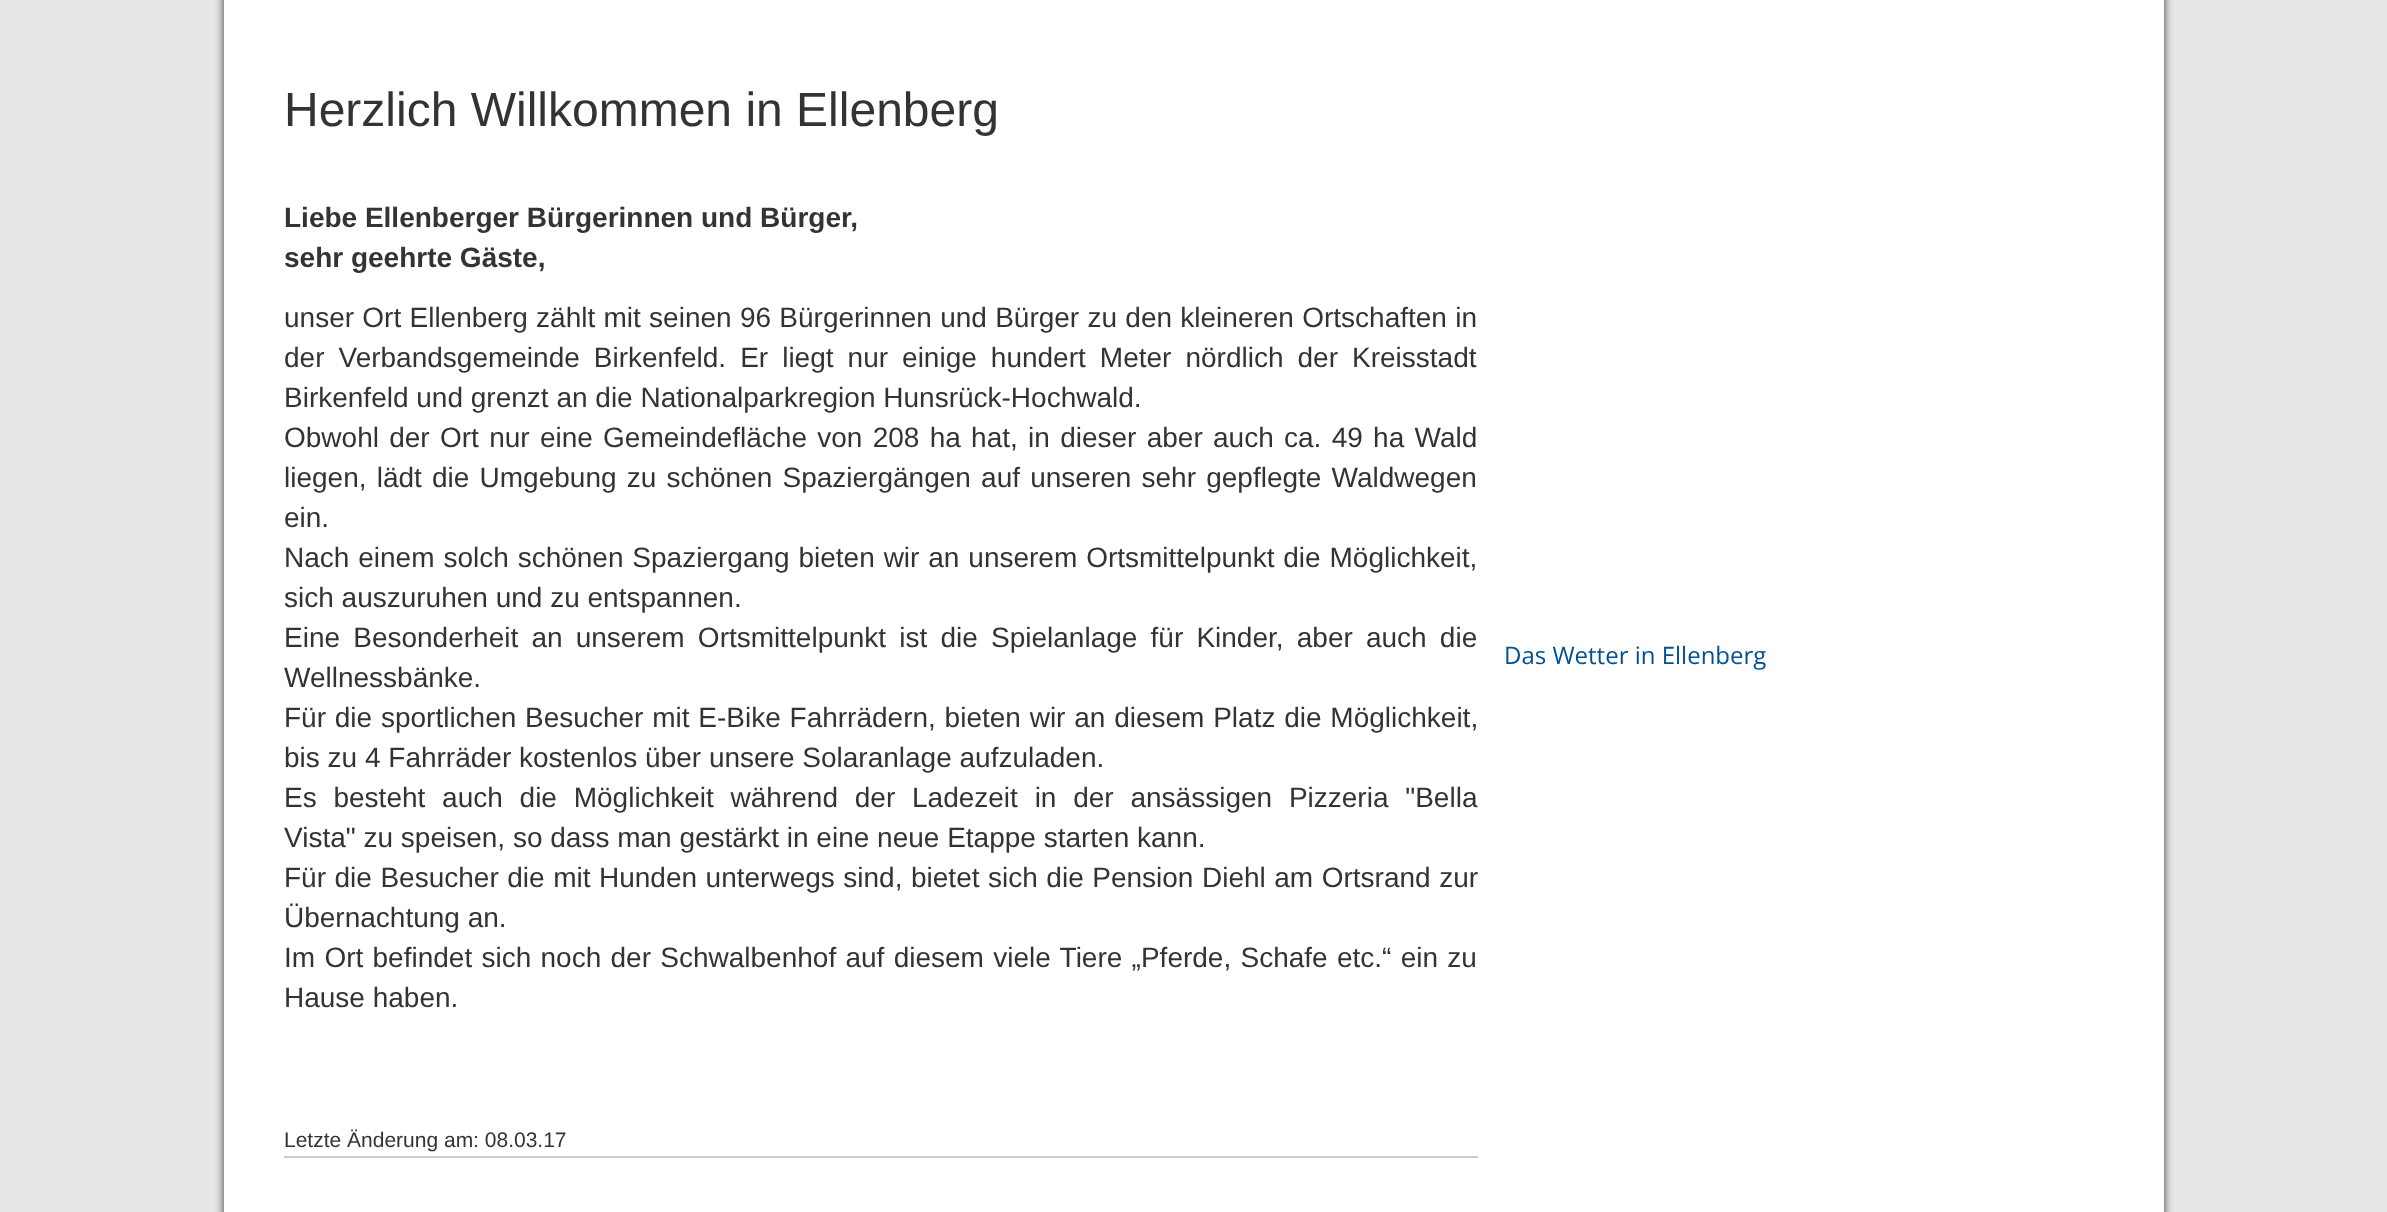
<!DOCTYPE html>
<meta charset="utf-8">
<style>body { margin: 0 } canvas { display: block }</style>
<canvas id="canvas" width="2387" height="1212"></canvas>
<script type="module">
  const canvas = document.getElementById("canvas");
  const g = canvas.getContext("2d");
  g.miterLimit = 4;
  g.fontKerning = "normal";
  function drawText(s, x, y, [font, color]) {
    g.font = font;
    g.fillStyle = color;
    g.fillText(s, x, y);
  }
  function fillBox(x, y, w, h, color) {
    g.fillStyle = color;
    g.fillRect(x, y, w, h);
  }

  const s1 = ["48px Liberation Sans", "#333333"];
  const s2 = ["bold 28px Liberation Sans", "#333333"];
  const s3 = ["28px Liberation Sans", "#333333"];
  const s4 = ["21px Liberation Sans", "#333333"];
  const s5 = ["24px Open Sans", "#005093"];

  fillBox(0, 0, 2387, 1212, "#E7E7E7");
  g.fillStyle = "rgba(0, 0, 0, 0.75)";
  g.filter = "blur(5px)";
  g.beginPath();
  g.rect(224, -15, 1940, 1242);
  g.fill();
  g.filter = "none";
  fillBox(224, 0, 1940, 1212, "#FFFFFF");
  drawText("Herzlich Willkommen in Ellenberg", 284, 126, s1);
  drawText("Liebe Ellenberger Bürgerinnen und Bürger,", 284, 227, s2);
  drawText("sehr geehrte Gäste,", 284, 267, s2);
  g.wordSpacing = "0.5px";
  drawText("unser Ort Ellenberg zählt mit seinen 96 Bürgerinnen und Bürger zu den kleineren Ortschaften in", 284, 327, s3);
  g.wordSpacing = "6.25px";
  drawText("der Verbandsgemeinde Birkenfeld. Er liegt nur einige hundert Meter nördlich der Kreisstadt", 284, 367, s3);
  g.wordSpacing = "0px";
  drawText("Birkenfeld und grenzt an die Nationalparkregion Hunsrück-Hochwald.", 284, 407, s3);
  g.wordSpacing = "2.5px";
  drawText("Obwohl der Ort nur eine Gemeindefläche von 208 ha hat, in dieser aber auch ca. 49 ha Wald", 284, 447, s3);
  g.wordSpacing = "2.4px";
  drawText("liegen, lädt die Umgebung zu schönen Spaziergängen auf unseren sehr gepflegte Waldwegen", 284, 487, s3);
  g.wordSpacing = "0px";
  drawText("ein.", 284, 527, s3);
  g.wordSpacing = "1.1px";
  drawText("Nach einem solch schönen Spaziergang bieten wir an unserem Ortsmittelpunkt die Möglichkeit,", 284, 567, s3);
  g.wordSpacing = "0px";
  drawText("sich auszuruhen und zu entspannen.", 284, 607, s3);
  g.wordSpacing = "5.4px";
  drawText("Eine Besonderheit an unserem Ortsmittelpunkt ist die Spielanlage für Kinder, aber auch die", 284, 647, s3);
  g.wordSpacing = "0px";
  drawText("Wellnessbänke.", 284, 687, s3);
  g.wordSpacing = "1px";
  drawText("Für die sportlichen Besucher mit E-Bike Fahrrädern, bieten wir an diesem Platz die Möglichkeit,", 284, 727, s3);
  g.wordSpacing = "0px";
  drawText("bis zu 4 Fahrräder kostenlos über unsere Solaranlage aufzuladen.", 284, 767, s3);
  g.wordSpacing = "9px";
  drawText("Es besteht auch die Möglichkeit während der Ladezeit in der ansässigen Pizzeria \"Bella", 284, 807, s3);
  g.wordSpacing = "0px";
  drawText("Vista\" zu speisen, so dass man gestärkt in eine neue Etappe starten kann.", 284, 847, s3);
  g.wordSpacing = "0.75px";
  drawText("Für die Besucher die mit Hunden unterwegs sind, bietet sich die Pension Diehl am Ortsrand zur", 284, 887, s3);
  g.wordSpacing = "0px";
  drawText("Übernachtung an.", 284, 927, s3);
  g.wordSpacing = "1.5px";
  drawText("Im Ort befindet sich noch der Schwalbenhof auf diesem viele Tiere „Pferde, Schafe etc.“ ein zu", 284, 967, s3);
  g.wordSpacing = "0px";
  drawText("Hause haben.", 284, 1007, s3);
  drawText("Letzte Änderung am: 08.03.17", 284, 1147, s4);
  fillBox(284, 1156, 1194, 2, "#CCCCCC");
  drawText("Das Wetter in Ellenberg", 1504, 664, s5);
</script>
